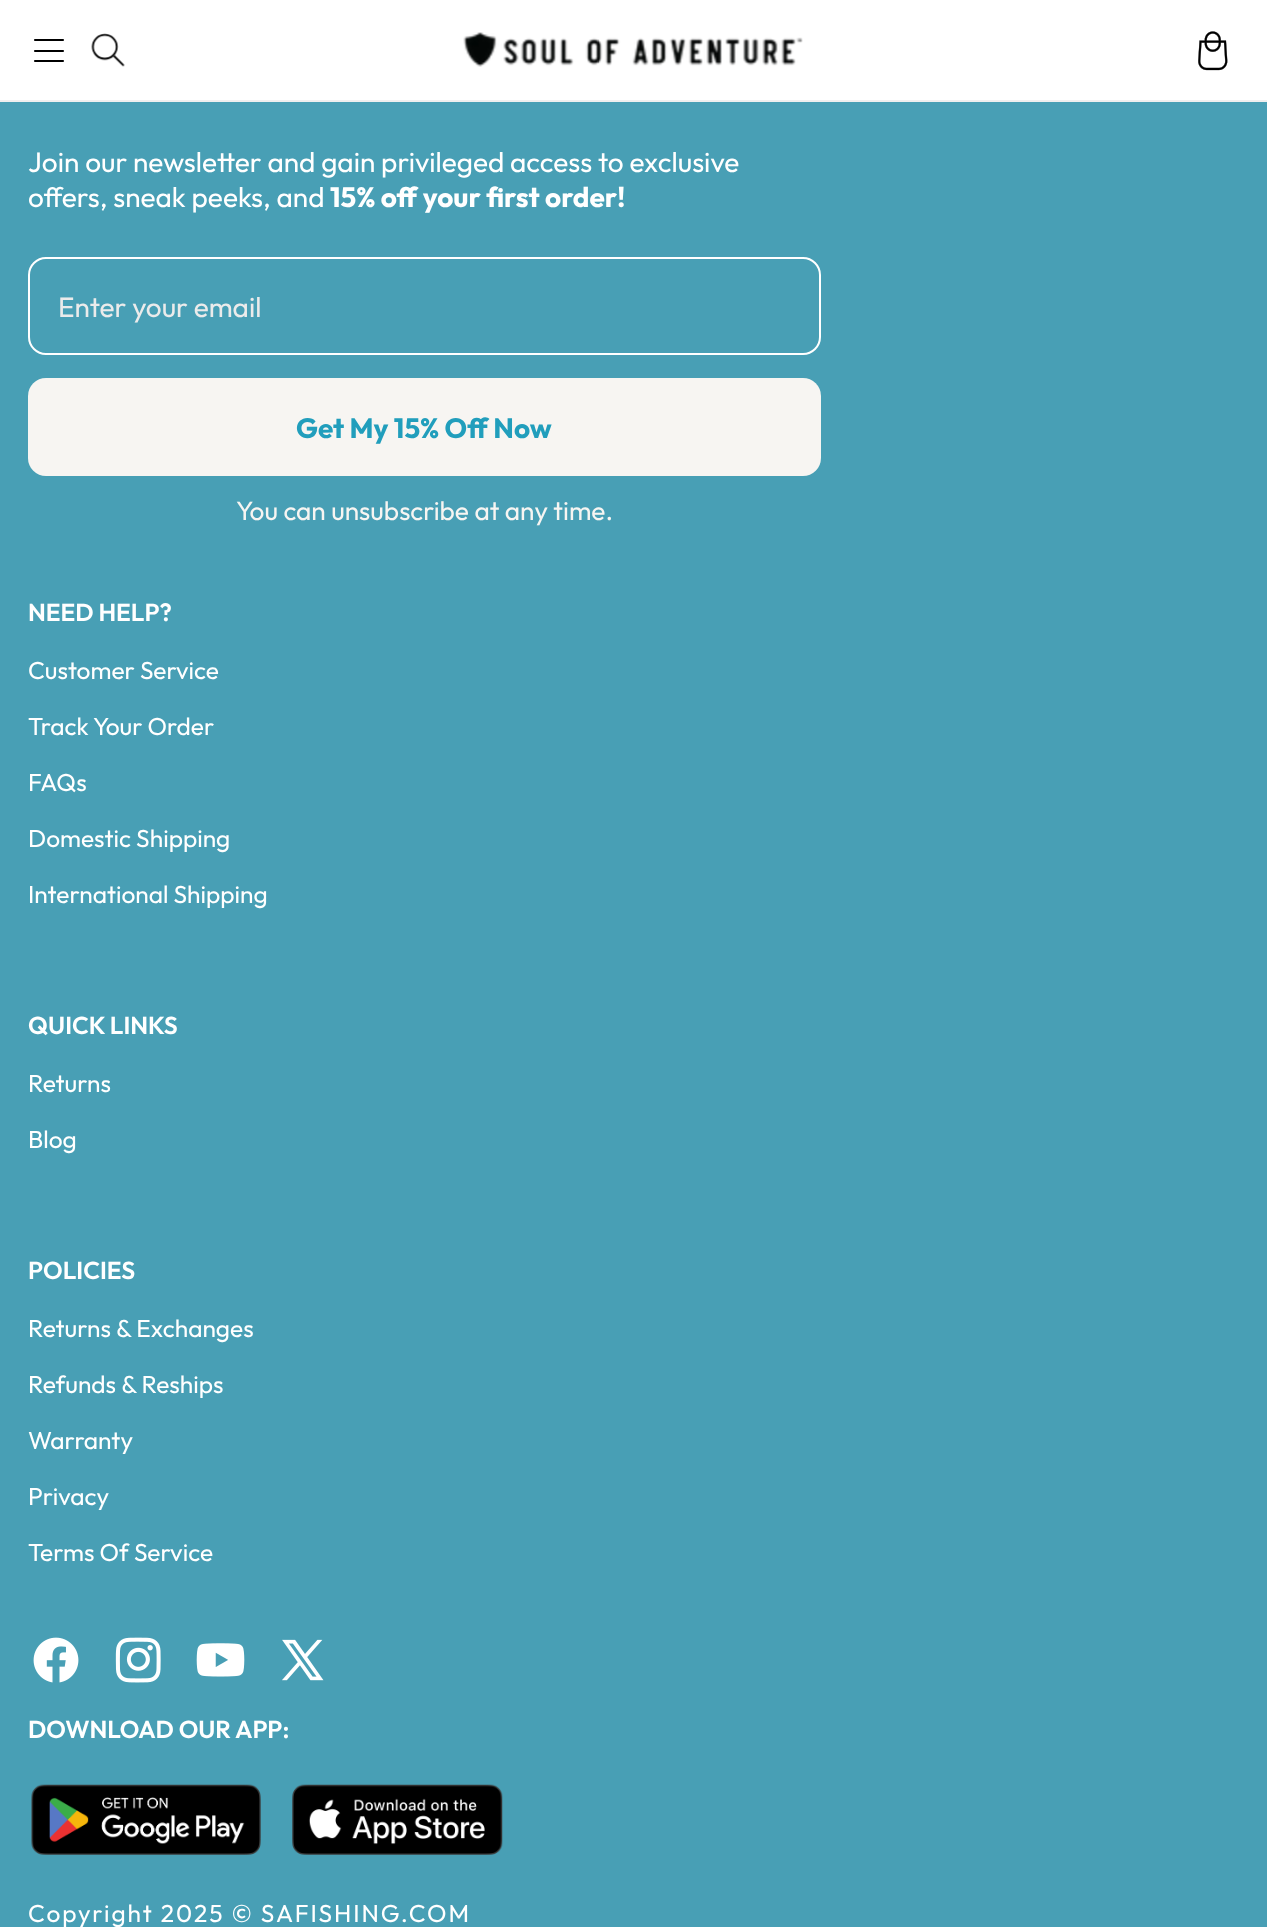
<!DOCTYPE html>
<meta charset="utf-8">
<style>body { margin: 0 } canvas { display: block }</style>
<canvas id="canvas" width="1267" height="1927"></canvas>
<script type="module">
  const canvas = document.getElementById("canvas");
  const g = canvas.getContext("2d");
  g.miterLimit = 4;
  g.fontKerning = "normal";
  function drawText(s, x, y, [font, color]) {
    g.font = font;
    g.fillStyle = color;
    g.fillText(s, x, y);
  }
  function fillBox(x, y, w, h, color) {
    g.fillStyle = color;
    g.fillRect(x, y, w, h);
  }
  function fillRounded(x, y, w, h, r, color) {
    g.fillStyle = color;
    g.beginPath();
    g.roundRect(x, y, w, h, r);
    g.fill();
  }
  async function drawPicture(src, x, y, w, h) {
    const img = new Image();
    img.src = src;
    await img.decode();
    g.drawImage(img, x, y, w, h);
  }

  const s1 = ["28px Outfit", "#FFFFFF"];
  const s2 = ["bold 28px Outfit", "#FFFFFF"];
  const s3 = ["28px Outfit", "#EBEBEB"];
  const s4 = ["bold 28px Outfit", "#219EBC"];
  const s5 = ["26.25px Outfit", "#F7F5F2"];
  const s6 = ["600 24.5px Outfit", "#FFFFFF"];
  const s7 = ["24.5px Outfit", "#FFFFFF"];

  fillBox(0, 0, 1267, 1927, "#489FB5");
  fillBox(0, 0, 1267, 100, "#FFFFFF");
  fillBox(0, 100, 1267, 2, "#EFEFEF");
  g.beginPath();
  g.moveTo(35, 61);
  g.lineTo(63, 61);
  g.moveTo(35, 51);
  g.lineTo(63, 51);
  g.closePath();
  g.moveTo(35, 40);
  g.lineTo(63, 40);
  g.closePath();
  g.strokeStyle = "#000000";
  g.lineWidth = 2.1;
  g.lineCap = "round";
  g.lineJoin = "round";
  g.stroke();
  await drawPicture("pic1.png", 91, 33, 34, 34);
  await drawPicture("pic2.png", 463, 32, 340, 35);
  await drawPicture("pic3.png", 1198, 31, 30, 40);
  drawText("Join our newsletter and gain privileged access to exclusive", 28, 172, s1);
  drawText("offers, sneak peeks, and", 28, 207, s1);
  drawText("15% off your first order!", 330, 207, s2);
  g.beginPath();
  g.roundRect(29, 258, 791, 96, 17);
  g.strokeStyle = "#FFFFFF";
  g.lineWidth = 2;
  g.lineJoin = "miter";
  g.stroke();
  drawText("Enter your email", 58, 317, s3);
  fillRounded(28, 378, 793, 98, 18, "#F7F5F2");
  drawText("Get My 15% Off Now", 296, 438, s4);
  drawText("You can unsubscribe at any time.", 236, 520, s5);
  drawText("NEED HELP?", 28, 621, s6);
  drawText("Customer Service", 28, 679, s7);
  drawText("Track Your Order", 28, 735, s7);
  drawText("FAQs", 28, 791, s7);
  drawText("Domestic Shipping", 28, 847, s7);
  drawText("International Shipping", 28, 903, s7);
  drawText("QUICK LINKS", 28, 1034, s6);
  drawText("Returns", 28, 1092, s7);
  drawText("Blog", 28, 1148, s7);
  drawText("POLICIES", 28, 1279, s6);
  drawText("Returns & Exchanges", 28, 1337, s7);
  drawText("Refunds & Reships", 28, 1393, s7);
  drawText("Warranty", 28, 1449, s7);
  drawText("Privacy", 28, 1505, s7);
  drawText("Terms Of Service", 28, 1561, s7);
  await drawPicture("pic4.png", 33, 1637, 46, 46);
  await drawPicture("pic5.png", 115, 1637, 46, 46);
  await drawPicture("pic6.png", 196, 1643, 49, 34);
  await drawPicture("pic7.png", 282, 1639, 42, 42);
  drawText("DOWNLOAD OUR APP:", 28, 1738, s6);
  await drawPicture("pic8.png", 31, 1784, 230, 71);
  await drawPicture("pic9.png", 292, 1784, 211, 71);
  g.letterSpacing = "1.95px";
  drawText("Copyright 2025 © SAFISHING.COM", 28, 1922, s7);
</script>
